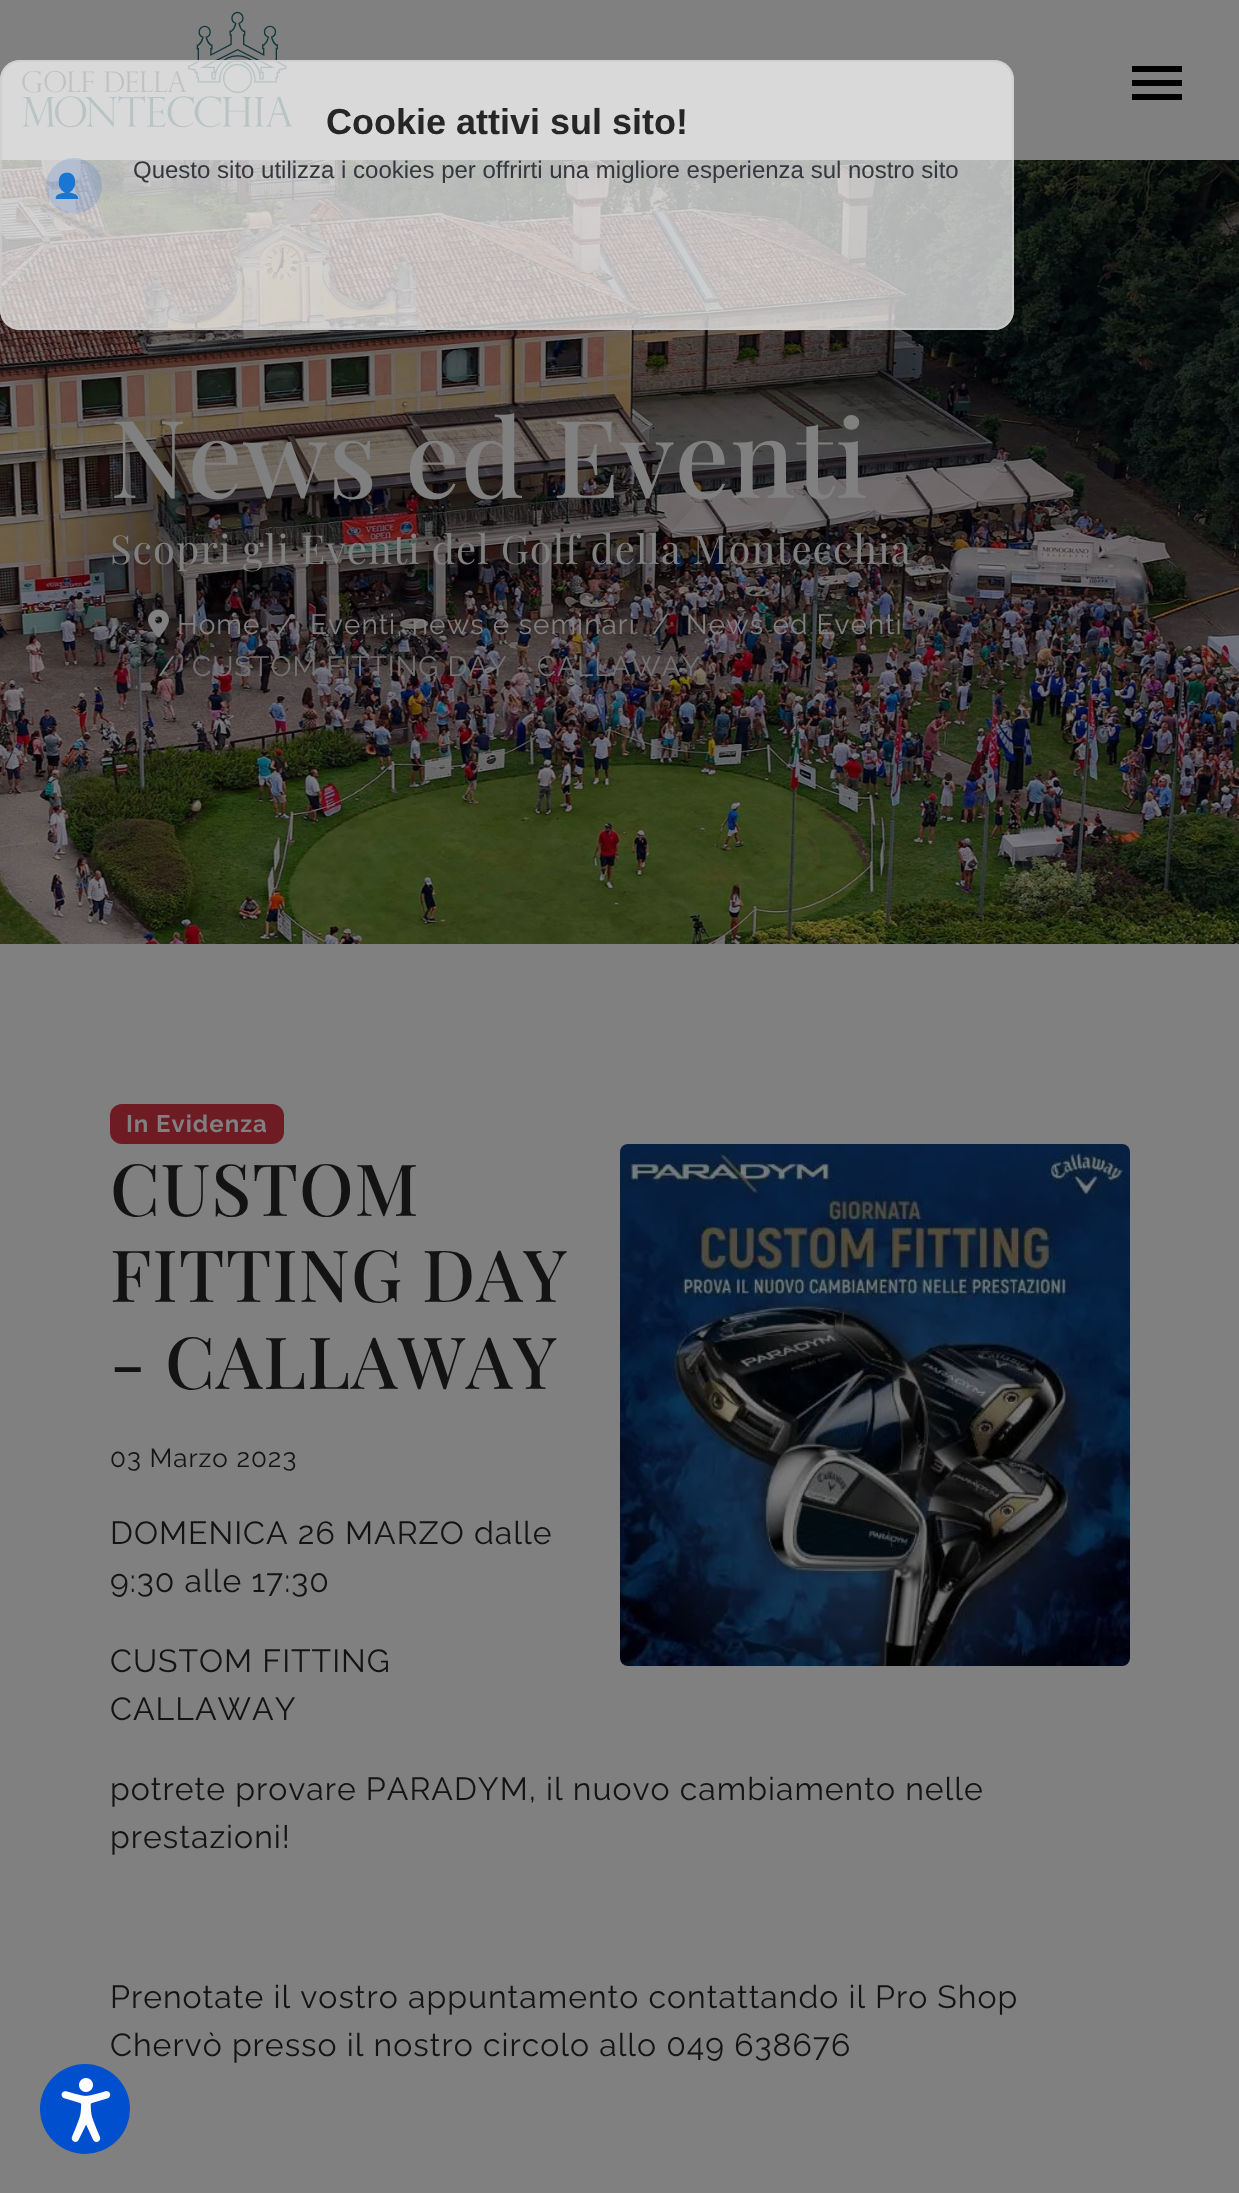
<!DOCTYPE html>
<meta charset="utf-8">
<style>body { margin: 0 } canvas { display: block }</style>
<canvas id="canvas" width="1239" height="2193"></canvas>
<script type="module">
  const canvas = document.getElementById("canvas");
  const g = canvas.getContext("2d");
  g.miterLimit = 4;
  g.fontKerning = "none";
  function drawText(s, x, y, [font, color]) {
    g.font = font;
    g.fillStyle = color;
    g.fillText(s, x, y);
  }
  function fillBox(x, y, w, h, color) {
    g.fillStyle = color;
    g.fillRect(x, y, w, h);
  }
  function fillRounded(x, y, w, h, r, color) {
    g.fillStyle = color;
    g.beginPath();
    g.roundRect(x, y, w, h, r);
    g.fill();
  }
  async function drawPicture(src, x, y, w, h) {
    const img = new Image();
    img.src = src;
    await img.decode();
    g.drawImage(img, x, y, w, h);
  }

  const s1 = ["bold 36px Liberation Sans", "#262626"];
  const s2 = ["24px Noto Color Emoji", "#34373D"];
  const s3 = ["24px Liberation Sans", "#34373D"];
  const s4 = ["500 108px Playfair Display", "#808080"];
  const s5 = ["40px Playfair Display", "#808080"];
  const s6 = ["100 28px Raleway", "#808080"];
  const s7 = ["100 28px Raleway", "#737172"];
  const s8 = ["100 24px 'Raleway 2'", "#808080"];
  const s9 = ["500 72px Playfair Display", "#131313"];
  const s10 = ["100 26px Raleway", "#131313"];
  const s11 = ["100 32px Raleway", "#131313"];

  fillBox(0, 0, 1239, 2193, "#808080");
  await drawPicture("pic1.png", 22, 11, 271, 117);
  await drawPicture("pic2.png", 0, 160, 1239, 784);
  fillRounded(0, 60, 1014, 270, 20, "rgba(255, 255, 255, 0.7)");
  g.beginPath();
  g.roundRect(1, 61, 1012, 268, 19);
  g.strokeStyle = "rgba(204, 204, 204, 0.7)";
  g.lineWidth = 2;
  g.stroke();
  drawText("Cookie attivi sul sito!", 326, 134, s1);
  g.fillStyle = "rgba(25, 103, 210, 0.17)";
  g.beginPath();
  g.arc(74, 186, 28, 0, Math.PI * 2);
  g.fill();
  drawText("👤", 52, 194, s2);
  drawText("Questo sito utilizza i cookies per offrirti una migliore esperienza sul nostro sito", 133, 178, s3);
  fillBox(1132, 66, 50, 6, "#000000");
  fillBox(1132, 80, 50, 6, "#000000");
  fillBox(1132, 94, 50, 6, "#000000");
  g.letterSpacing = "1px";
  drawText("News ed Eventi", 110, 498, s4);
  drawText("Scopri gli Eventi del Golf della Montecchia", 110, 564, s5);
  await drawPicture("pic3.png", 148, 609, 21, 29);
  drawText("Home", 177, 634, s6);
  drawText("/", 277, 634, s6);
  drawText("Eventi, news e seminari", 310, 634, s6);
  drawText("/", 652, 634, s6);
  drawText("News ed Eventi", 686, 634, s6);
  drawText("/", 158, 676, s6);
  drawText("CUSTOM FITTING DAY - CALLAWAY", 192, 676, s7);
  fillRounded(110, 1104, 174, 40, 12, "#6E1B23");
  drawText("In Evidenza", 126, 1132, s8);
  drawText("CUSTOM", 110, 1216, s9);
  drawText("FITTING DAY", 110, 1302, s9);
  drawText("- CALLAWAY", 110, 1389, s9);
  await drawPicture("pic4.png", 620, 1144, 510, 522);
  drawText("03 Marzo 2023", 110, 1467, s10);
  drawText("DOMENICA 26 MARZO dalle", 110, 1544, s11);
  drawText("9:30 alle 17:30", 110, 1592, s11);
  drawText("CUSTOM FITTING", 110, 1672, s11);
  drawText("CALLAWAY", 110, 1720, s11);
  drawText("potrete provare PARADYM,", 110, 1800, s11);
  drawText("il nuovo cambiamento nelle", 546, 1800, s11);
  drawText("prestazioni!", 110, 1848, s11);
  drawText("Prenotate il vostro appuntamento contattando il", 110, 2008, s11);
  drawText("Pro Shop", 875, 2008, s11);
  drawText("Chervò presso il nostro circolo allo 049 638676", 110, 2056, s11);
  g.fillStyle = "#004FCE";
  g.beginPath();
  g.arc(85, 2109, 45, 0, Math.PI * 2);
  g.fill();
  await drawPicture("pic5.png", 61, 2078, 50, 64);
</script>
